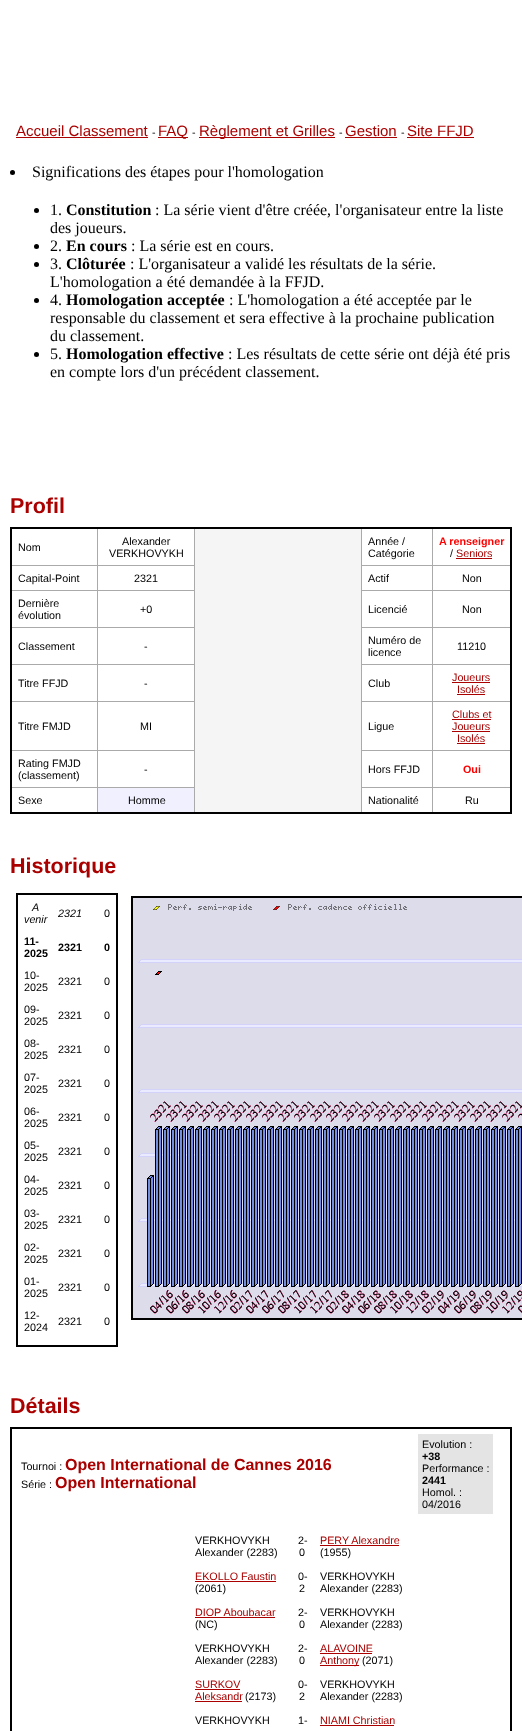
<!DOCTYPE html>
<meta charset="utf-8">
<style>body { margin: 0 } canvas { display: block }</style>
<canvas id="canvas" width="522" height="1731"></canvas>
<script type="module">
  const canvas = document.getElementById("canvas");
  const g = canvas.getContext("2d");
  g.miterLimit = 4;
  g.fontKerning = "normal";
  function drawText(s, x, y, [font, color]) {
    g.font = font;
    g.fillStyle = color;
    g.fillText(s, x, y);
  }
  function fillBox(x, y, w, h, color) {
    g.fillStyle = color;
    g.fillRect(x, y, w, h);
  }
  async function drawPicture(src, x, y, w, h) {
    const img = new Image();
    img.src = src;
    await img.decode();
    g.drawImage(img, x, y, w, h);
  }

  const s1 = ["15px Liberation Sans", "#AA0000"];
  const s2 = ["10.75px Liberation Sans", "#000000"];
  const s3 = ["16px Liberation Serif", "#000000"];
  const s4 = ["bold 16px Liberation Serif", "#000000"];
  const s5 = ["bold 21.5px Liberation Sans", "#AA0000"];
  const s6 = ["bold 10.75px Liberation Sans", "#FF0000"];
  const s7 = ["10.75px Liberation Sans", "#AA0000"];
  const s8 = ["italic 10.75px Liberation Sans", "#000000"];
  const s9 = ["bold 10.75px Liberation Sans", "#000000"];
  const s10 = ["bold 16px Liberation Sans", "#AA0000"];

  fillBox(0, 0, 522, 1731, "#FFFFFF");
  drawText("Accueil Classement", 16, 136, s1);
  fillBox(16, 137, 132, 1, "#AA0000");
  drawText("-", 152, 136, s2);
  fillBox(158, 137, 30, 1, "#AA0000");
  drawText("FAQ", 158, 136, s1);
  drawText("-", 192, 136, s2);
  fillBox(199, 137, 136, 1, "#AA0000");
  drawText("Règlement et Grilles", 199, 136, s1);
  drawText("-", 339, 136, s2);
  drawText("Gestion", 345, 136, s1);
  fillBox(345, 137, 52, 1, "#AA0000");
  drawText("-", 401, 136, s2);
  drawText("Site FFJD", 407, 136, s1);
  fillBox(407, 137, 67, 1, "#AA0000");
  g.fillStyle = "#000000";
  g.beginPath();
  g.arc(12.5, 172.5, 2.5, 0, Math.PI * 2);
  g.fill();
  drawText("Significations des étapes pour l'homologation", 32, 177, s3);
  g.beginPath();
  g.arc(36.5, 210.5, 2.5, 0, Math.PI * 2);
  g.fill();
  drawText("1.", 50, 215, s3);
  drawText("Constitution", 66, 215, s4);
  drawText(": La série vient d'être créée, l'organisateur entre la liste", 155, 215, s3);
  drawText("des joueurs.", 50, 233, s3);
  g.beginPath();
  g.arc(36.5, 246.5, 2.5, 0, Math.PI * 2);
  g.fill();
  drawText("2.", 50, 251, s3);
  drawText("En cours", 66, 251, s4);
  drawText(": La série est en cours.", 131, 251, s3);
  g.beginPath();
  g.arc(36.5, 264.5, 2.5, 0, Math.PI * 2);
  g.fill();
  drawText("3.", 50, 269, s3);
  drawText("Clôturée", 66, 269, s4);
  drawText(": L'organisateur a validé les résultats de la série.", 130, 269, s3);
  drawText("L'homologation a été demandée à la FFJD.", 50, 287, s3);
  g.beginPath();
  g.arc(36.5, 300.5, 2.5, 0, Math.PI * 2);
  g.fill();
  drawText("4.", 50, 305, s3);
  drawText("Homologation acceptée", 66, 305, s4);
  drawText(": L'homologation a été acceptée par le", 229, 305, s3);
  drawText("responsable du classement et sera effective à la prochaine publication", 50, 323, s3);
  drawText("du classement.", 50, 341, s3);
  g.beginPath();
  g.arc(36.5, 354.5, 2.5, 0, Math.PI * 2);
  g.fill();
  drawText("5.", 50, 359, s3);
  drawText("Homologation effective", 66, 359, s4);
  drawText(": Les résultats de cette série ont déjà été pris", 228, 359, s3);
  drawText("en compte lors d'un précédent classement.", 50, 377, s3);
  drawText("Profil", 10, 513, s5);
  fillBox(97, 565, 98, 1, "#AAAAAA");
  fillBox(97, 590, 98, 1, "#AAAAAA");
  fillBox(97, 627, 98, 1, "#AAAAAA");
  fillBox(97, 664, 98, 1, "#AAAAAA");
  fillBox(97, 701, 98, 1, "#AAAAAA");
  fillBox(97, 750, 98, 1, "#AAAAAA");
  fillBox(97, 787, 98, 1, "#AAAAAA");
  fillBox(97, 787, 1, 26, "#AAAAAA");
  fillBox(11, 787, 87, 1, "#AAAAAA");
  fillBox(97, 750, 1, 38, "#AAAAAA");
  fillBox(11, 750, 87, 1, "#AAAAAA");
  fillBox(97, 701, 1, 50, "#AAAAAA");
  fillBox(11, 701, 87, 1, "#AAAAAA");
  fillBox(97, 664, 1, 38, "#AAAAAA");
  fillBox(11, 664, 87, 1, "#AAAAAA");
  fillBox(97, 627, 1, 38, "#AAAAAA");
  fillBox(11, 627, 87, 1, "#AAAAAA");
  fillBox(97, 590, 1, 38, "#AAAAAA");
  fillBox(11, 590, 87, 1, "#AAAAAA");
  fillBox(97, 565, 1, 26, "#AAAAAA");
  fillBox(11, 565, 87, 1, "#AAAAAA");
  fillBox(97, 527, 1, 39, "#AAAAAA");
  fillBox(432, 565, 80, 1, "#AAAAAA");
  fillBox(432, 590, 80, 1, "#AAAAAA");
  fillBox(432, 627, 80, 1, "#AAAAAA");
  fillBox(432, 664, 80, 1, "#AAAAAA");
  fillBox(432, 701, 80, 1, "#AAAAAA");
  fillBox(432, 750, 80, 1, "#AAAAAA");
  fillBox(432, 787, 80, 1, "#AAAAAA");
  fillBox(432, 787, 1, 26, "#AAAAAA");
  fillBox(361, 787, 72, 1, "#AAAAAA");
  fillBox(432, 750, 1, 38, "#AAAAAA");
  fillBox(361, 750, 72, 1, "#AAAAAA");
  fillBox(432, 701, 1, 50, "#AAAAAA");
  fillBox(361, 701, 72, 1, "#AAAAAA");
  fillBox(432, 664, 1, 38, "#AAAAAA");
  fillBox(361, 664, 72, 1, "#AAAAAA");
  fillBox(432, 627, 1, 38, "#AAAAAA");
  fillBox(361, 627, 72, 1, "#AAAAAA");
  fillBox(432, 590, 1, 38, "#AAAAAA");
  fillBox(361, 590, 72, 1, "#AAAAAA");
  fillBox(432, 565, 1, 26, "#AAAAAA");
  fillBox(361, 565, 72, 1, "#AAAAAA");
  fillBox(432, 527, 1, 39, "#AAAAAA");
  fillBox(194, 787, 1, 26, "#AAAAAA");
  fillBox(194, 750, 1, 38, "#AAAAAA");
  fillBox(194, 701, 1, 50, "#AAAAAA");
  fillBox(194, 664, 1, 38, "#AAAAAA");
  fillBox(194, 627, 1, 38, "#AAAAAA");
  fillBox(194, 590, 1, 38, "#AAAAAA");
  fillBox(194, 527, 1, 64, "#AAAAAA");
  fillBox(361, 787, 1, 26, "#AAAAAA");
  fillBox(361, 750, 1, 38, "#AAAAAA");
  fillBox(361, 701, 1, 50, "#AAAAAA");
  fillBox(361, 664, 1, 38, "#AAAAAA");
  fillBox(361, 627, 1, 38, "#AAAAAA");
  fillBox(361, 590, 1, 38, "#AAAAAA");
  fillBox(361, 527, 1, 64, "#AAAAAA");
  fillBox(10, 527, 502, 2, "#000000");
  fillBox(510, 527, 2, 287, "#000000");
  fillBox(10, 812, 502, 2, "#000000");
  fillBox(10, 527, 2, 287, "#000000");
  drawText("Nom", 18, 551, s2);
  drawText("Alexander", 122, 545, s2);
  drawText("VERKHOVYKH", 109, 557, s2);
  fillBox(195, 529, 166, 283, "#F5F5F5");
  drawText("Année /", 368, 545, s2);
  drawText("Catégorie", 368, 557, s2);
  drawText("A renseigner", 439, 545, s6);
  drawText("/", 450, 557, s2);
  drawText("Seniors", 456, 557, s7);
  fillBox(456, 558, 36, 1, "#AA0000");
  drawText("Capital-Point", 18, 582, s2);
  drawText("2321", 134, 582, s2);
  drawText("Actif", 368, 582, s2);
  drawText("Non", 462, 582, s2);
  drawText("Dernière", 18, 607, s2);
  drawText("évolution", 18, 619, s2);
  drawText("+0", 140, 613, s2);
  drawText("Licencié", 368, 613, s2);
  drawText("Non", 462, 613, s2);
  drawText("Classement", 18, 650, s2);
  drawText("-", 144, 650, s2);
  drawText("Numéro de", 368, 644, s2);
  drawText("licence", 368, 656, s2);
  drawText("11210", 457, 650, s2);
  drawText("Titre FFJD", 18, 687, s2);
  drawText("-", 144, 687, s2);
  drawText("Club", 368, 687, s2);
  drawText("Joueurs", 452, 681, s7);
  fillBox(452, 682, 38, 1, "#AA0000");
  drawText("Isolés", 457, 693, s7);
  fillBox(457, 694, 28, 1, "#AA0000");
  drawText("Titre FMJD", 18, 730, s2);
  drawText("MI", 140, 730, s2);
  drawText("Ligue", 368, 730, s2);
  drawText("Clubs et", 452, 718, s7);
  fillBox(452, 719, 39, 1, "#AA0000");
  drawText("Joueurs", 452, 730, s7);
  fillBox(452, 731, 38, 1, "#AA0000");
  drawText("Isolés", 457, 742, s7);
  fillBox(457, 743, 28, 1, "#AA0000");
  drawText("Rating FMJD", 18, 767, s2);
  drawText("(classement)", 18, 779, s2);
  drawText("-", 144, 773, s2);
  drawText("Hors FFJD", 368, 773, s2);
  drawText("Oui", 463, 773, s6);
  drawText("Sexe", 18, 804, s2);
  fillBox(98, 788, 96, 24, "#F0F0FF");
  drawText("Homme", 128, 804, s2);
  drawText("Nationalité", 368, 804, s2);
  drawText("Ru", 465, 804, s2);
  drawText("Historique", 10, 873, s5);
  g.strokeStyle = "#000000";
  g.lineWidth = 2;
  g.strokeRect(17, 894, 100, 452);
  drawText("A", 32, 911, s8);
  drawText("venir", 24, 923, s8);
  drawText("2321", 58, 917, s8);
  drawText("0", 104, 917, s2);
  drawText("11-", 24, 945, s9);
  drawText("2025", 24, 957, s9);
  drawText("2321", 58, 951, s9);
  drawText("0", 104, 951, s9);
  drawText("10-", 24, 979, s2);
  drawText("2025", 24, 991, s2);
  drawText("2321", 58, 985, s2);
  drawText("0", 104, 985, s2);
  drawText("09-", 24, 1013, s2);
  drawText("2025", 24, 1025, s2);
  drawText("2321", 58, 1019, s2);
  drawText("0", 104, 1019, s2);
  drawText("08-", 24, 1047, s2);
  drawText("2025", 24, 1059, s2);
  drawText("2321", 58, 1053, s2);
  drawText("0", 104, 1053, s2);
  drawText("07-", 24, 1081, s2);
  drawText("2025", 24, 1093, s2);
  drawText("2321", 58, 1087, s2);
  drawText("0", 104, 1087, s2);
  drawText("06-", 24, 1115, s2);
  drawText("2025", 24, 1127, s2);
  drawText("2321", 58, 1121, s2);
  drawText("0", 104, 1121, s2);
  drawText("05-", 24, 1149, s2);
  drawText("2025", 24, 1161, s2);
  drawText("2321", 58, 1155, s2);
  drawText("0", 104, 1155, s2);
  drawText("04-", 24, 1183, s2);
  drawText("2025", 24, 1195, s2);
  drawText("2321", 58, 1189, s2);
  drawText("0", 104, 1189, s2);
  drawText("03-", 24, 1217, s2);
  drawText("2025", 24, 1229, s2);
  drawText("2321", 58, 1223, s2);
  drawText("0", 104, 1223, s2);
  drawText("02-", 24, 1251, s2);
  drawText("2025", 24, 1263, s2);
  drawText("2321", 58, 1257, s2);
  drawText("0", 104, 1257, s2);
  drawText("01-", 24, 1285, s2);
  drawText("2025", 24, 1297, s2);
  drawText("2321", 58, 1291, s2);
  drawText("0", 104, 1291, s2);
  drawText("12-", 24, 1319, s2);
  drawText("2024", 24, 1331, s2);
  drawText("2321", 58, 1325, s2);
  drawText("0", 104, 1325, s2);
  g.strokeRect(132, 897, 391, 422);
  await drawPicture("pic1.png", 133, 898, 389, 420);
  drawText("Détails", 10, 1413, s5);
  fillBox(10, 1427, 502, 2, "#000000");
  fillBox(510, 1427, 2, 304, "#000000");
  fillBox(10, 1427, 2, 304, "#000000");
  drawText("Tournoi :", 21, 1470, s2);
  drawText("Open International de Cannes 2016", 65, 1470, s10);
  drawText("Série :", 21, 1488, s2);
  drawText("Open International", 55, 1488, s10);
  fillBox(418, 1434, 75, 80, "#E4E4E4");
  drawText("Evolution :", 422, 1448, s2);
  drawText("+38", 422, 1460, s9);
  drawText("Performance :", 422, 1472, s2);
  drawText("2441", 422, 1484, s9);
  drawText("Homol. :", 422, 1496, s2);
  drawText("04/2016", 422, 1508, s2);
  drawText("VERKHOVYKH", 195, 1544, s2);
  drawText("Alexander (2283)", 195, 1556, s2);
  drawText("2-", 298, 1544, s2);
  drawText("0", 299, 1556, s2);
  drawText("PERY Alexandre", 320, 1544, s7);
  fillBox(320, 1545, 79, 1, "#AA0000");
  drawText("(1955)", 320, 1556, s2);
  drawText("EKOLLO Faustin", 195, 1580, s7);
  fillBox(195, 1581, 81, 1, "#AA0000");
  drawText("(2061)", 195, 1592, s2);
  drawText("0-", 298, 1580, s2);
  drawText("2", 299, 1592, s2);
  drawText("VERKHOVYKH", 320, 1580, s2);
  drawText("Alexander (2283)", 320, 1592, s2);
  drawText("DIOP Aboubacar", 195, 1616, s7);
  fillBox(195, 1617, 80, 1, "#AA0000");
  drawText("(NC)", 195, 1628, s2);
  drawText("2-", 298, 1616, s2);
  drawText("0", 299, 1628, s2);
  drawText("VERKHOVYKH", 320, 1616, s2);
  drawText("Alexander (2283)", 320, 1628, s2);
  drawText("VERKHOVYKH", 195, 1652, s2);
  drawText("Alexander (2283)", 195, 1664, s2);
  drawText("2-", 298, 1652, s2);
  drawText("0", 299, 1664, s2);
  drawText("ALAVOINE", 320, 1652, s7);
  fillBox(320, 1653, 52, 1, "#AA0000");
  fillBox(320, 1665, 39, 1, "#AA0000");
  drawText("Anthony", 320, 1664, s7);
  drawText("(2071)", 362, 1664, s2);
  drawText("SURKOV", 195, 1688, s7);
  fillBox(195, 1689, 45, 1, "#AA0000");
  drawText("Aleksandr", 195, 1700, s7);
  fillBox(195, 1701, 47, 1, "#AA0000");
  drawText("(2173)", 245, 1700, s2);
  drawText("0-", 298, 1688, s2);
  drawText("2", 299, 1700, s2);
  drawText("VERKHOVYKH", 320, 1688, s2);
  drawText("Alexander (2283)", 320, 1700, s2);
  drawText("VERKHOVYKH", 195, 1724, s2);
  drawText("1-", 298, 1724, s2);
  drawText("NIAMI Christian", 320, 1724, s7);
  fillBox(320, 1725, 74, 1, "#AA0000");
</script>
